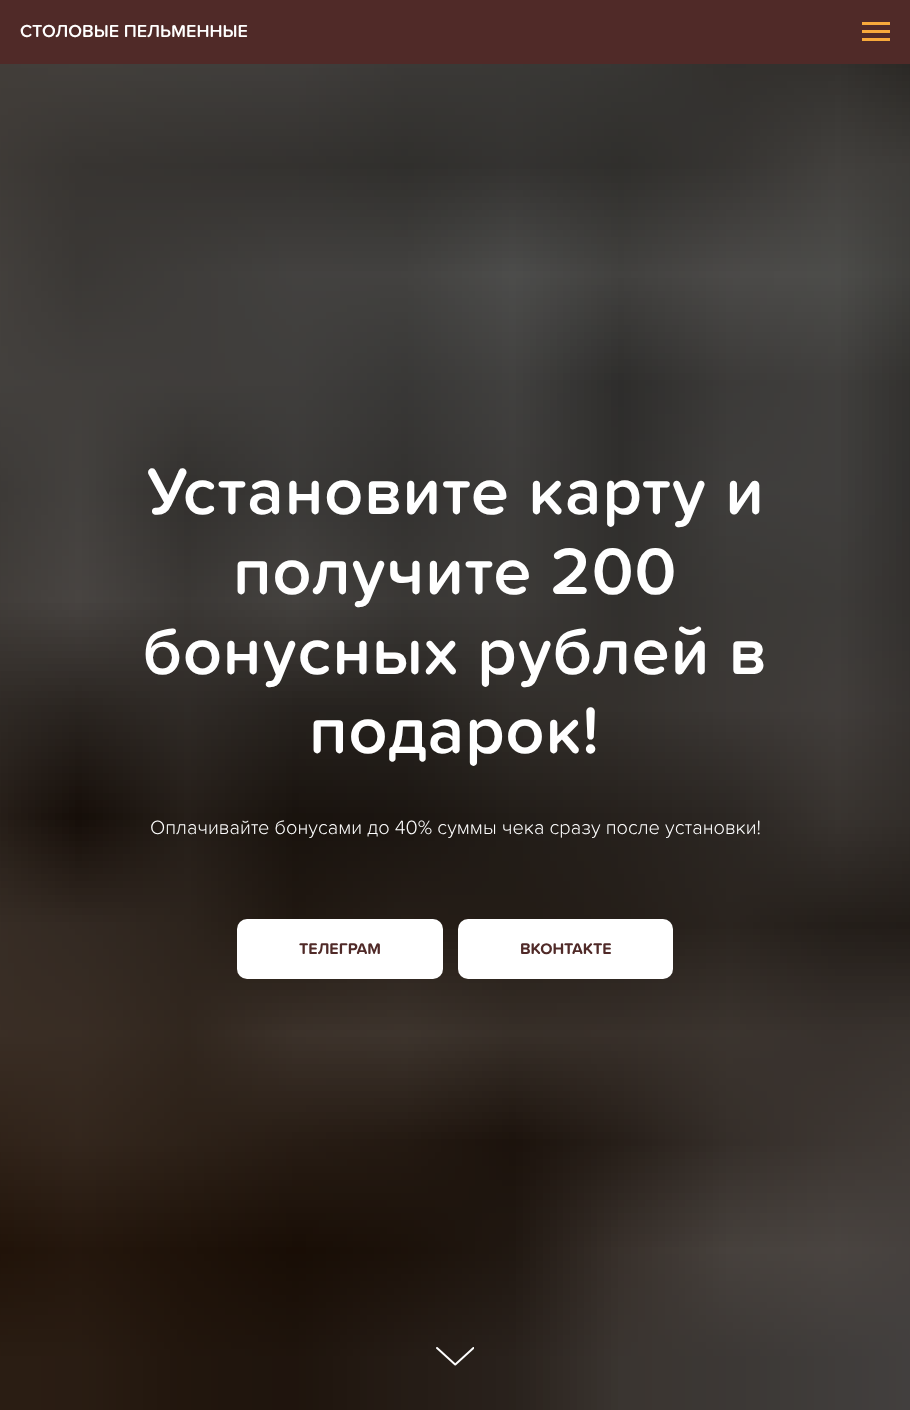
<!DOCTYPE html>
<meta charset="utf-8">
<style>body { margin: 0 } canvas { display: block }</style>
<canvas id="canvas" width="910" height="1410"></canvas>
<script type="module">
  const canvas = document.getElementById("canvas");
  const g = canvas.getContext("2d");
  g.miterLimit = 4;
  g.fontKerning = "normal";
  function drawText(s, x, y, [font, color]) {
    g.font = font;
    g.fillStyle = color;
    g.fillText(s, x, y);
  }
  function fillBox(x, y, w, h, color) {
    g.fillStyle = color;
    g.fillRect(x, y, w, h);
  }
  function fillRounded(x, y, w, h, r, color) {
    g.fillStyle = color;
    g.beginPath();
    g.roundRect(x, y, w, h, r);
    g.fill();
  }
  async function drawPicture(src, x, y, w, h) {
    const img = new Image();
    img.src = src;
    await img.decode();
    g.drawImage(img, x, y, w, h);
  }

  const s1 = ["600 18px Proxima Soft", "#FFFFFF"];
  const s2 = ["600 68px Proxima Soft", "#FFFFFF"];
  const s3 = ["300 20px Proxima Soft", "#FFFFFF"];
  const s4 = ["bold 16px Proxima Soft", "#502A28"];

  fillBox(0, 0, 910, 1410, "#FFFFFF");
  fillBox(0, 0, 910, 64, "#502A28");
  drawText("СТОЛОВЫЕ ПЕЛЬМЕННЫЕ", 20, 37, s1);
  fillBox(862, 22, 28, 3, "#F7A93B");
  fillBox(862, 30, 28, 3, "#F7A93B");
  fillBox(862, 38, 28, 3, "#F7A93B");
  await drawPicture("pic1.png", 0, 64, 910, 1346);
  g.letterSpacing = "1px";
  drawText("Установите карту и", 145, 514, s2);
  drawText("получите 200", 233, 594, s2);
  drawText("бонусных рублей в", 143, 674, s2);
  drawText("подарок!", 309, 753, s2);
  g.letterSpacing = "0px";
  drawText("Оплачивайте бонусами до 40% суммы чека сразу после установки!", 150, 834, s3);
  fillRounded(237, 919, 206, 60, 10, "#FFFFFF");
  drawText("ТЕЛЕГРАМ", 299, 954, s4);
  fillRounded(458, 919, 215, 60, 10, "#FFFFFF");
  drawText("ВКОНТАКТЕ", 520, 954, s4);
  await drawPicture("pic2.png", 436, 1347, 38, 19);
</script>
